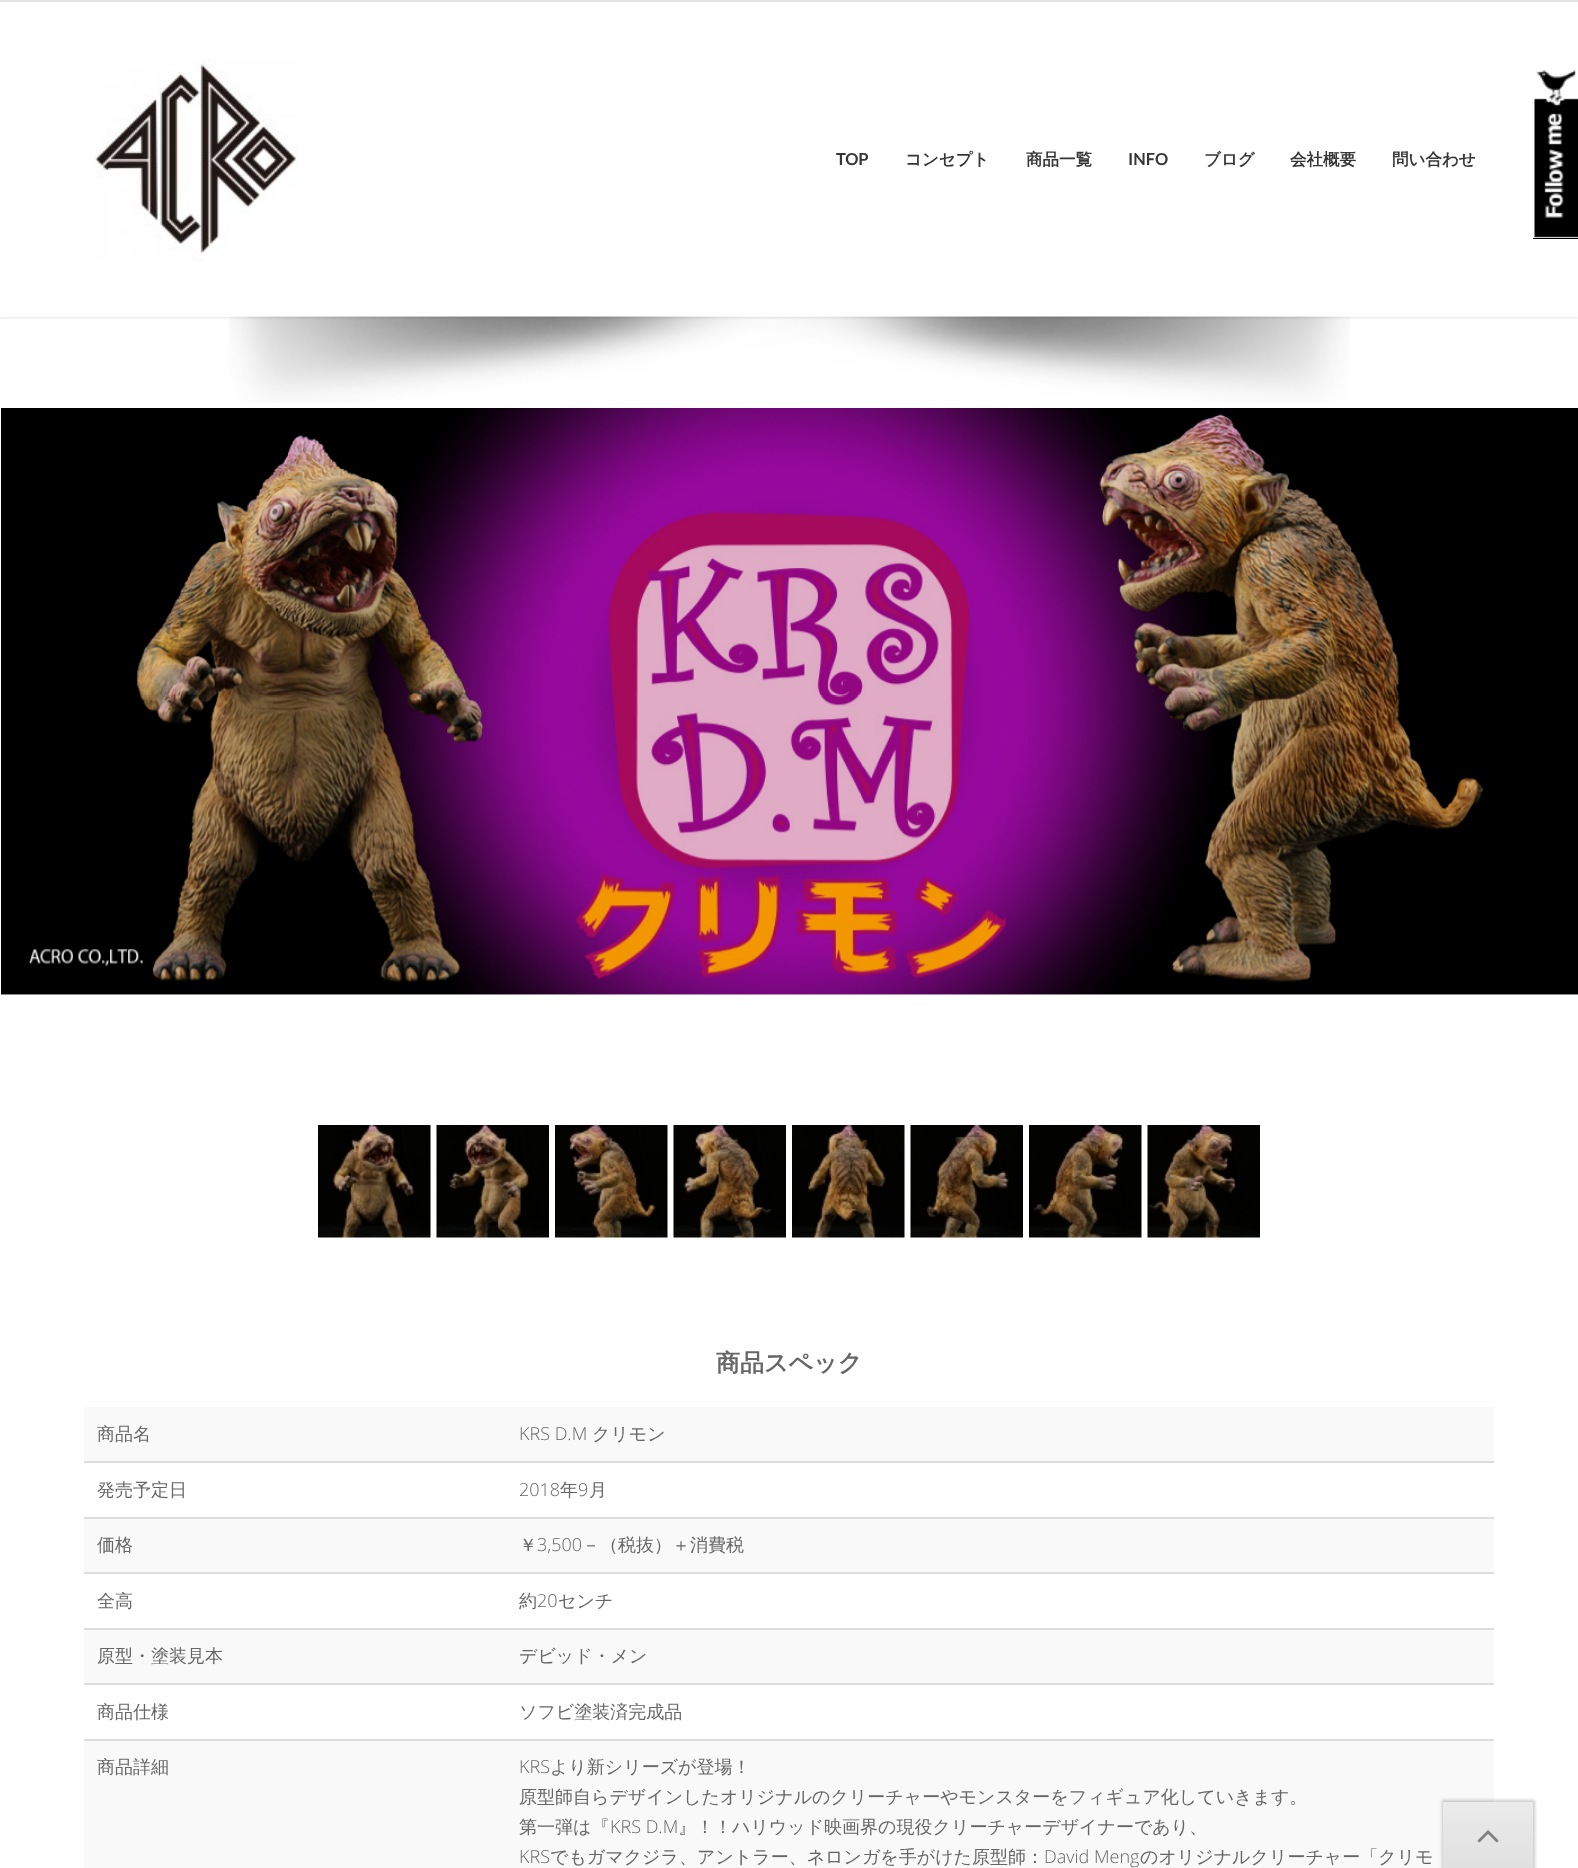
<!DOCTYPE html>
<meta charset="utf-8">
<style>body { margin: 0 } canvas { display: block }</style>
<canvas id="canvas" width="1578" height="1868"></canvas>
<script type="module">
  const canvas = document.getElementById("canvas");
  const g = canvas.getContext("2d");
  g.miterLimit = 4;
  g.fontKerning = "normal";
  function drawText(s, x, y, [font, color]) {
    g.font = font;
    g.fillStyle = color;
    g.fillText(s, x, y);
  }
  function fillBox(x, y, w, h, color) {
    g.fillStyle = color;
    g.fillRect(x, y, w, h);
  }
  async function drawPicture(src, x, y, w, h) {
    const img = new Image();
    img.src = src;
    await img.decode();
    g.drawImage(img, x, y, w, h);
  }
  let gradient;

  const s1 = ["bold 16.5px Lato", "#363636"];
  const s2 = ["bold 16.5px WenQuanYi Zen Hei", "#363636"];
  const s3 = ["bold 24px WenQuanYi Zen Hei", "#666666"];
  const s4 = ["500 18px WenQuanYi Zen Hei", "#666666"];
  const s5 = ["300 18px Open Sans", "#666666"];

  fillBox(0, 0, 1578, 1868, "#FFFFFF");
  g.fillStyle = "rgba(0, 0, 0, 0.1)";
  g.filter = "blur(1px)";
  g.beginPath();
  g.rect(0, 2, 1578, 316);
  g.fill();
  g.filter = "none";
  fillBox(0, 2, 1578, 315, "#FFFFFF");
  fillBox(0, 0, 1578, 2, "#E2E2E2");
  await drawPicture("pic1.png", 95, 59, 203, 203);
  drawText("TOP", 836, 165, s1);
  drawText("コンセプト", 905, 165, s2);
  drawText("商品一覧", 1026, 165, s2);
  drawText("INFO", 1128, 165, s1);
  drawText("ブログ", 1204, 165, s2);
  drawText("会社概要", 1290, 165, s2);
  drawText("問い合わせ", 1392, 165, s2);
  await drawPicture("pic2.png", 229, 316, 1121, 87);
  fillBox(1533, 68, 45, 171, "#000000");
  await drawPicture("pic3.png", 1533, 60, 45, 178);
  await drawPicture("pic4.png", 1, 408, 1577, 587);
  await drawPicture("pic5.png", 318, 1125, 113, 113);
  await drawPicture("pic6.png", 436, 1125, 113, 113);
  await drawPicture("pic7.png", 555, 1125, 113, 113);
  await drawPicture("pic8.png", 673, 1125, 113, 113);
  await drawPicture("pic9.png", 792, 1125, 113, 113);
  await drawPicture("pic10.png", 910, 1125, 113, 113);
  await drawPicture("pic11.png", 1029, 1125, 113, 113);
  await drawPicture("pic12.png", 1147, 1125, 113, 113);
  drawText("商品スペック", 716, 1371, s3);
  fillBox(84, 1407, 1410, 54, "#F9F9F9");
  drawText("商品名", 97, 1440, s4);
  drawText("KRS D.M", 519, 1440, s5);
  drawText("クリモン", 592, 1440, s4);
  drawText("発売予定日", 97, 1496, s4);
  fillBox(84, 1461, 1410, 2, "#DDDDDD");
  drawText("2018", 519, 1496, s5);
  drawText("年", 560, 1496, s4);
  drawText("9", 578, 1496, s5);
  drawText("月", 589, 1496, s4);
  fillBox(84, 1519, 1410, 53, "#F9F9F9");
  drawText("価格", 97, 1551, s4);
  fillBox(84, 1517, 1410, 2, "#DDDDDD");
  drawText("￥", 519, 1551, s4);
  drawText("3,500", 537, 1551, s5);
  drawText("－（税抜）＋消費税", 582, 1551, s4);
  drawText("全高", 97, 1607, s4);
  fillBox(84, 1572, 1410, 2, "#DDDDDD");
  drawText("約", 519, 1607, s4);
  drawText("20", 537, 1607, s5);
  drawText("センチ", 558, 1607, s4);
  fillBox(84, 1630, 1410, 53, "#F9F9F9");
  drawText("原型・塗装見本", 97, 1662, s4);
  fillBox(84, 1628, 1410, 2, "#DDDDDD");
  drawText("デビッド・メン", 519, 1662, s4);
  drawText("商品仕様", 97, 1718, s4);
  fillBox(84, 1683, 1410, 2, "#DDDDDD");
  drawText("ソフビ塗装済完成品", 519, 1718, s4);
  fillBox(84, 1741, 1410, 127, "#F9F9F9");
  drawText("商品詳細", 97, 1773, s4);
  fillBox(84, 1739, 1410, 2, "#DDDDDD");
  drawText("KRS", 519, 1773, s5);
  drawText("より新シリーズが登場！", 550, 1773, s4);
  drawText("原型師自らデザインしたオリジナルのクリーチャーやモンスターをフィギュア化していきます。", 519, 1803, s4);
  drawText("第一弾は『", 519, 1833, s4);
  drawText("KRS D.M", 610, 1833, s5);
  drawText("』！！ハリウッド映画界の現役クリーチャーデザイナーであり、", 678, 1833, s4);
  drawText("KRS", 519, 1863, s5);
  drawText("でもガマクジラ、アントラー、ネロンガを手がけた原型師：", 550, 1863, s4);
  drawText("David Meng", 1044, 1863, s5);
  drawText("のオリジナルクリーチャー「クリモ", 1140, 1863, s4);
  g.fillStyle = "rgba(0, 0, 0, 0.2)";
  g.filter = "blur(1.5px)";
  g.beginPath();
  g.rect(1442, 1800, 93, 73);
  g.fill();
  g.filter = "none";
  gradient = g.createLinearGradient(1488, 1802, 1488, 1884);
  gradient.addColorStop(0, "#EBEBEB");
  gradient.addColorStop(1, "#DEDEDE");
  g.fillStyle = gradient;
  g.fillRect(1443, 1802, 90, 66);
  await drawPicture("pic13.png", 1477, 1830, 22, 13);
</script>
